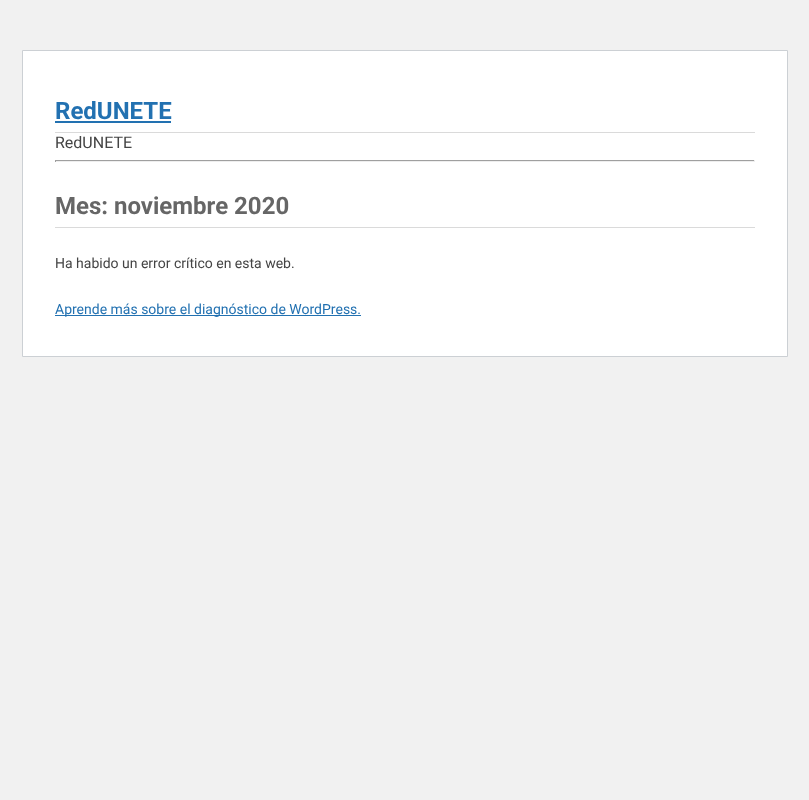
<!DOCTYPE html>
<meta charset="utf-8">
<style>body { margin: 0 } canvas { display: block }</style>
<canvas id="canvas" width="809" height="800"></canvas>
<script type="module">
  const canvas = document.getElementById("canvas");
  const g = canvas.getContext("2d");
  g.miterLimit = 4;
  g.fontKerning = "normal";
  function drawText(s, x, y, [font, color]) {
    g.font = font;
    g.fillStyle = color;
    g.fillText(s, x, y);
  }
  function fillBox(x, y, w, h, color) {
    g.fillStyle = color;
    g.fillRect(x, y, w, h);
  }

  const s1 = ["bold 24px Roboto", "#2271B1"];
  const s2 = ["16px Roboto", "#444444"];
  const s3 = ["bold 24px Roboto", "#666666"];
  const s4 = ["14px Roboto", "#444444"];
  const s5 = ["14px Roboto", "#2271B1"];

  fillBox(0, 0, 809, 800, "#F1F1F1");
  g.fillStyle = "#FFFFFF";
  g.beginPath();
  g.rect(22.5, 50.5, 765, 306);
  g.fill();
  g.strokeStyle = "#CCD0D4";
  g.stroke();
  fillBox(55, 132, 700, 1, "#DADADA");
  drawText("RedUNETE", 55, 119, s1);
  fillBox(55, 121, 116, 2, "#2271B1");
  drawText("RedUNETE", 55, 148, s2);
  fillBox(55, 160, 700, 1, "#9F9F9F");
  fillBox(754, 160, 1, 2, "#EEEEEE");
  fillBox(55, 161, 700, 1, "#EEEEEE");
  fillBox(55, 160, 1, 2, "#9F9F9F");
  fillBox(55, 227, 700, 1, "#DADADA");
  drawText("Mes: noviembre 2020", 55, 214, s3);
  drawText("Ha habido un error crítico en esta web.", 55, 268, s4);
  fillBox(55, 315, 306, 1, "#2271B1");
  drawText("Aprende más sobre el diagnóstico de WordPress.", 55, 314, s5);
</script>
